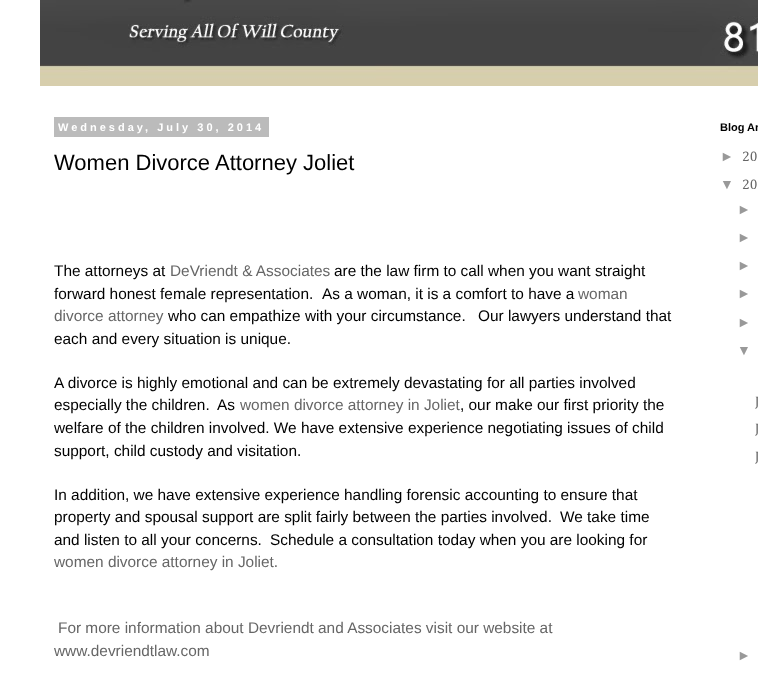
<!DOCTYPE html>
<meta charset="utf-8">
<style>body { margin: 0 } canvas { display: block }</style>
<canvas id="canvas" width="758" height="677"></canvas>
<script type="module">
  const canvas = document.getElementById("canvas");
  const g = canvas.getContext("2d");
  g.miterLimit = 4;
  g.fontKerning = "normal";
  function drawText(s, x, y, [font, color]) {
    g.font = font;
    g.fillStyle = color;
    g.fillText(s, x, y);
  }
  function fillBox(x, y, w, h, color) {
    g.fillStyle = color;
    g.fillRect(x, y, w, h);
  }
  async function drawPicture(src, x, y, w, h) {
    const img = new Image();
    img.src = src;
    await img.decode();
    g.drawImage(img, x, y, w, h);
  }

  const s1 = ["bold 11px Liberation Sans", "#FFFFFF"];
  const s2 = ["22px Liberation Sans", "#000000"];
  const s3 = ["15.4px Liberation Sans", "#000000"];
  const s4 = ["15.4px Liberation Sans", "#666666"];
  const s5 = ["bold 11px Liberation Sans", "#000000"];
  const s6 = ["14px Liberation Sans", "#999999"];
  const s7 = ["14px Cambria", "#666666"];

  fillBox(0, 0, 758, 677, "#FFFFFF");
  await drawPicture("pic1.png", 40, 0, 718, 86);
  fillBox(54, 117, 215, 20, "#BBBBBB");
  g.letterSpacing = "3px";
  drawText("Wednesday, July 30, 2014", 58, 131, s1);
  g.letterSpacing = "0px";
  drawText("Women Divorce Attorney Joliet", 54, 170, s2);
  drawText("The attorneys at", 54, 276, s3);
  drawText("DeVriendt & Associates", 170, 276, s4);
  drawText("are the law firm to call when you want straight", 334, 276, s3);
  drawText("forward honest female representation.", 54, 299, s3);
  drawText("As a woman, it is a comfort to have a", 322, 299, s3);
  drawText("woman", 578, 299, s4);
  drawText("divorce attorney", 54, 321, s4);
  drawText("who can empathize with your circumstance.", 168, 321, s3);
  drawText("Our lawyers understand that", 478, 321, s3);
  drawText("each and every situation is unique.", 54, 344, s3);
  drawText("A divorce is highly emotional and can be extremely devastating for all parties involved", 54, 388, s3);
  drawText("especially the children.", 54, 410, s3);
  drawText("As", 217, 410, s3);
  drawText("women divorce attorney in Joliet", 240, 410, s4);
  drawText(", our make our first priority the", 460, 410, s3);
  drawText("welfare of the children involved. We have extensive experience negotiating issues of child", 54, 433, s3);
  drawText("support, child custody and visitation.", 54, 456, s3);
  drawText("In addition, we have extensive experience handling forensic accounting to ensure that", 54, 500, s3);
  drawText("property and spousal support are split fairly between the parties involved.", 54, 522, s3);
  drawText("We take time", 560, 522, s3);
  drawText("and listen to all your concerns.", 54, 545, s3);
  drawText("Schedule a consultation today when you are looking for", 270, 545, s3);
  drawText("women divorce attorney in Joliet.", 54, 567, s4);
  drawText("For more information about Devriendt and Associates visit our website at", 58, 633, s4);
  drawText("www.devriendtlaw.com", 54, 656, s4);
  drawText("Blog Ar", 720, 131, s5);
  drawText("►", 720, 161, s6);
  drawText("20", 742, 161, s7);
  drawText("▼", 720, 189, s6);
  drawText("20", 742, 189, s7);
  drawText("►", 737, 214, s6);
  drawText("►", 737, 242, s6);
  drawText("►", 737, 270, s6);
  drawText("►", 737, 298, s6);
  drawText("►", 737, 327, s6);
  drawText("▼", 737, 355, s6);
  drawText("J", 755, 406, s7);
  drawText("J", 755, 433, s7);
  drawText("J", 755, 461, s7);
  drawText("►", 737, 660, s6);
</script>
